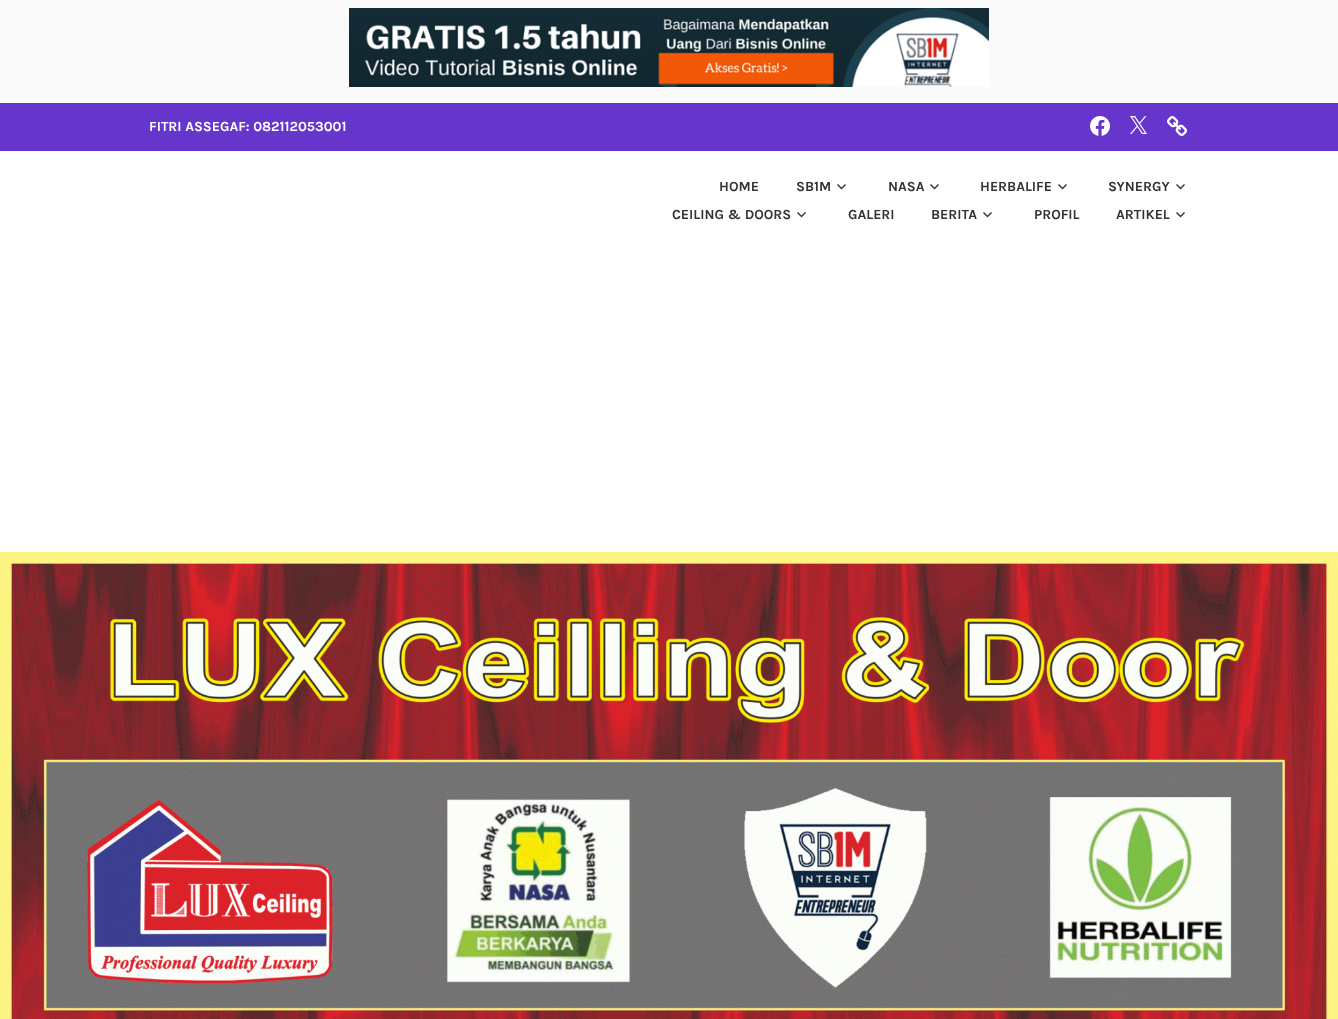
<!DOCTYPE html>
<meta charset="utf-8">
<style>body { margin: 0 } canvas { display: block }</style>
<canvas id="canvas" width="1338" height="1019"></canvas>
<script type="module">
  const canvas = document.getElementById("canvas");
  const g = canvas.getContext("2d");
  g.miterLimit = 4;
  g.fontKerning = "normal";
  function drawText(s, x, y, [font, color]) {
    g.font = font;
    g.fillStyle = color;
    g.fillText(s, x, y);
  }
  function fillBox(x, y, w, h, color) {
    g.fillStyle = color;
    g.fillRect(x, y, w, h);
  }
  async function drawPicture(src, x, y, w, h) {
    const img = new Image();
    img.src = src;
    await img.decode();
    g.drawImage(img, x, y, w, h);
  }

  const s1 = ["bold 14px Karla", "#FFFFFF"];
  const s2 = ["bold 14px Karla", "#333333"];

  fillBox(0, 0, 1338, 1019, "#FFFFFF");
  fillBox(0, 0, 1338, 103, "#FAFAFA");
  await drawPicture("pic1.png", 349, 8, 640, 79);
  fillBox(0, 103, 1338, 48, "#6636CC");
  drawText("FITRI ASSEGAF: 082112053001", 149, 131, s1);
  await drawPicture("pic2.png", 1090, 116, 20, 20);
  await drawPicture("pic3.png", 1130, 116, 17, 18);
  await drawPicture("pic4.png", 1167, 116, 20, 20);
  drawText("HOME", 719, 191, s2);
  drawText("SB1M", 796, 191, s2);
  await drawPicture("pic5.png", 837, 184, 9, 6);
  drawText("NASA", 888, 191, s2);
  await drawPicture("pic5.png", 930, 184, 9, 6);
  drawText("HERBALIFE", 980, 191, s2);
  await drawPicture("pic5.png", 1058, 184, 9, 6);
  drawText("SYNERGY", 1108, 191, s2);
  await drawPicture("pic5.png", 1176, 184, 9, 6);
  drawText("CEILING & DOORS", 672, 219, s2);
  await drawPicture("pic5.png", 797, 212, 9, 6);
  drawText("GALERI", 848, 219, s2);
  drawText("BERITA", 931, 219, s2);
  await drawPicture("pic5.png", 983, 212, 9, 6);
  drawText("PROFIL", 1034, 219, s2);
  drawText("ARTIKEL", 1116, 219, s2);
  await drawPicture("pic5.png", 1176, 212, 9, 6);
  await drawPicture("pic6.png", 0, 552, 1338, 467);
</script>
